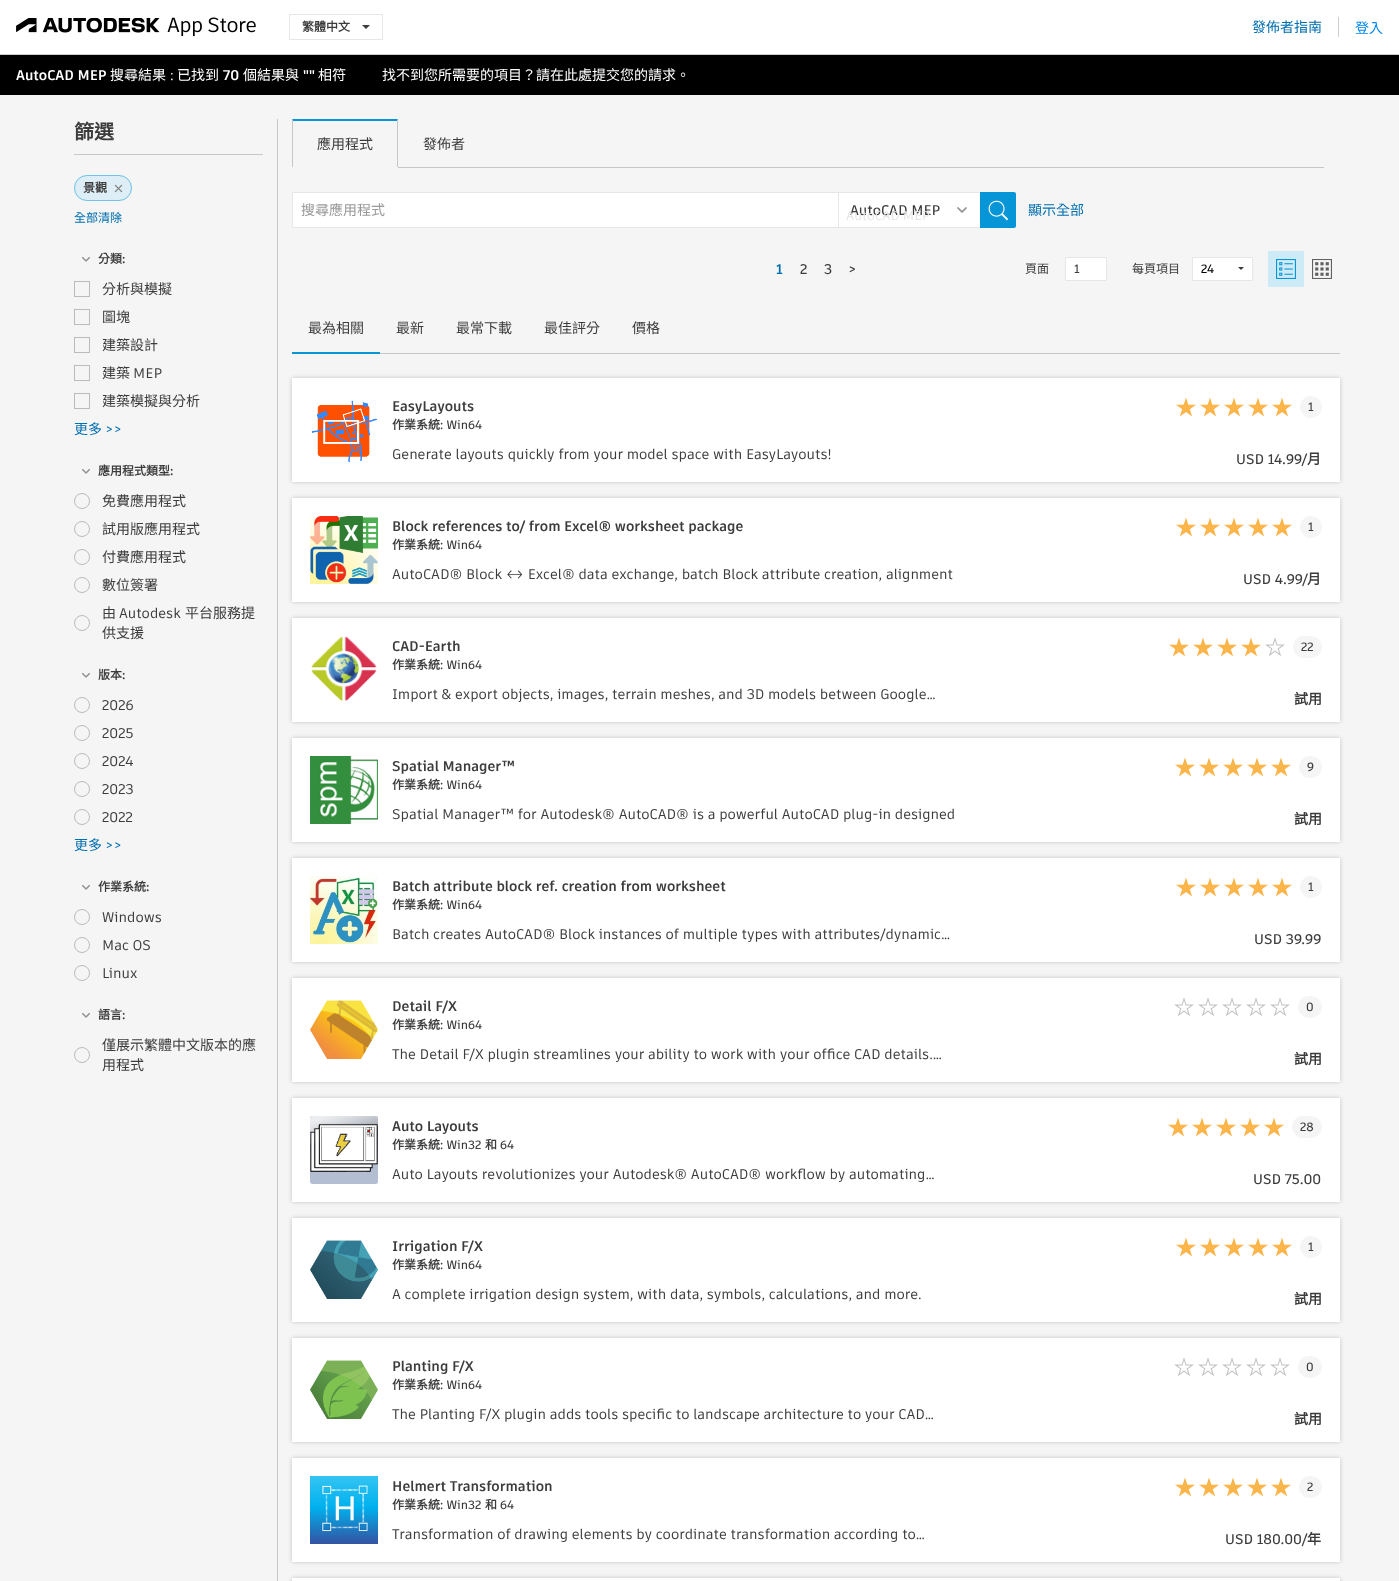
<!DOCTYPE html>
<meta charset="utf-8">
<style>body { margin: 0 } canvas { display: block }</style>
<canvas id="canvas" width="1399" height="1581"></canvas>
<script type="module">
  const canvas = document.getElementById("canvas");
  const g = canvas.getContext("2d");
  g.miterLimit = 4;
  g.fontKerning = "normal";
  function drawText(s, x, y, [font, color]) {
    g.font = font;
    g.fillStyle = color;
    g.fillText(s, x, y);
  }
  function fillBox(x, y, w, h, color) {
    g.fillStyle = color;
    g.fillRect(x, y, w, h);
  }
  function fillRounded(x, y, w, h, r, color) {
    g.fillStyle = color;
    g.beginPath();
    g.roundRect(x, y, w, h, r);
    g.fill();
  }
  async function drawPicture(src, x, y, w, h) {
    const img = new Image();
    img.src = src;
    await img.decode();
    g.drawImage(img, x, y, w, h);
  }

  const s1 = ["bold 12px Noto Sans CJK TC", "#3C3C3C"];
  const s2 = ["14px Noto Sans CJK TC", "#006EAF"];
  const s3 = ["14px Noto Sans CJK TC", "#0088EE"];
  const s4 = ["bold 14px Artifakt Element", "#FFFFFF"];
  const s5 = ["14px Noto Sans CJK TC", "#FFFFFF"];
  const s6 = ["500 14px Artifakt Element", "#FFFFFF"];
  const s7 = ["bold 20px Noto Sans CJK TC", "#3C3C3C"];
  const s8 = ["12px Noto Sans CJK TC", "#006EAF"];
  const s9 = ["bold 12px Artifakt Element", "#3C3C3C"];
  const s10 = ["14px Noto Sans CJK TC", "#3C3C3C"];
  const s11 = ["500 14px Artifakt Element", "#3C3C3C"];
  const s12 = ["500 14px Artifakt Element", "#006EAF"];
  const s13 = ["14px Noto Sans CJK TC", "#999999"];
  const s14 = ["600 14px Artifakt Element", "#3C3C3C"];
  const s15 = ["500 13px Artifakt Element", "#E5E5E5"];
  const s16 = ["bold 14px Artifakt Element", "#006EAF"];
  const s17 = ["12px Noto Sans CJK TC", "#3C3C3C"];
  const s18 = ["600 12px Artifakt Element", "#3C3C3C"];
  const s19 = ["600 12px Artifakt Element", "#000000"];
  const s20 = ["bold 14px Artifakt Element", "#3C3C3C"];
  const s21 = ["bold 14px Noto Sans CJK TC", "#3C3C3C"];

  fillBox(0, 0, 1399, 1581, "#F5F5F5");
  fillBox(0, 0, 1399, 54, "#FFFFFF");
  fillBox(0, 54, 1399, 1, "#CECECE");
  await drawPicture("pic1.png", 16, 17, 240, 20);
  g.strokeStyle = "#E6E6E6";
  g.strokeRect(289.5, 14.5, 93, 25);
  drawText("繁體中文", 302, 31, s1);
  g.beginPath();
  g.moveTo(362, 25);
  g.lineTo(370, 25);
  g.lineTo(366, 29);
  g.closePath();
  g.fill();
  fillBox(1338, 17, 1, 20, "#CECECE");
  drawText("發佈者指南", 1252, 32, s2);
  drawText("登入", 1355, 33, s3);
  fillBox(0, 55, 1399, 40, "#000000");
  drawText("AutoCAD MEP", 16, 80, s4);
  drawText("搜尋結果", 110, 80, s5);
  drawText(":", 170, 80, s6);
  drawText("已找到", 177, 80, s5);
  drawText("70", 223, 80, s4);
  drawText("個結果與", 243, 80, s5);
  drawText("\"\"", 303, 80, s4);
  drawText("相符", 318, 80, s5);
  drawText("找不到您所需要的項目？請在此處提交您的請求。", 382, 80, s5);
  fillBox(74, 154, 189, 1, "#C7C7C7");
  drawText("篩選", 74, 139, s7);
  fillRounded(74, 175, 58, 26, 13, "#DDEEF6");
  g.beginPath();
  g.roundRect(74.5, 175.5, 57, 25, 12.5);
  g.strokeStyle = "rgba(6, 150, 215, 0.5)";
  g.stroke();
  drawText("景觀", 83, 192, s1);
  await drawPicture("pic2.png", 114, 184, 9, 9);
  drawText("全部清除", 74, 222, s8);
  await drawPicture("pic3.png", 82, 257, 8, 5);
  drawText("分類", 98, 263, s1);
  drawText(":", 122, 263, s9);
  g.strokeStyle = "#BBBBBB";
  g.strokeRect(74.5, 281.5, 15, 15);
  drawText("分析與模擬", 102, 294, s10);
  g.strokeRect(74.5, 309.5, 15, 15);
  drawText("圖塊", 102, 322, s10);
  g.strokeRect(74.5, 337.5, 15, 15);
  drawText("建築設計", 102, 350, s10);
  g.strokeRect(74.5, 365.5, 15, 15);
  drawText("建築", 102, 378, s10);
  drawText("MEP", 133, 378, s11);
  g.strokeRect(74.5, 393.5, 15, 15);
  drawText("建築模擬與分析", 102, 406, s10);
  drawText("更多", 74, 434, s2);
  drawText(">>", 105, 434, s12);
  await drawPicture("pic3.png", 82, 469, 8, 5);
  drawText("應用程式類型", 98, 475, s1);
  drawText(":", 170, 475, s9);
  g.beginPath();
  g.arc(82, 501, 7.5, 0, Math.PI * 2);
  g.stroke();
  drawText("免費應用程式", 102, 506, s10);
  g.beginPath();
  g.arc(82, 529, 7.5, 0, Math.PI * 2);
  g.stroke();
  drawText("試用版應用程式", 102, 534, s10);
  g.beginPath();
  g.arc(82, 557, 7.5, 0, Math.PI * 2);
  g.stroke();
  drawText("付費應用程式", 102, 562, s10);
  g.beginPath();
  g.arc(82, 585, 7.5, 0, Math.PI * 2);
  g.stroke();
  drawText("數位簽署", 102, 590, s10);
  drawText("由", 102, 618, s10);
  drawText("Autodesk", 119, 618, s11);
  drawText("平台服務提", 185, 618, s10);
  g.beginPath();
  g.arc(82, 623, 7.5, 0, Math.PI * 2);
  g.stroke();
  drawText("供支援", 102, 638, s10);
  await drawPicture("pic3.png", 82, 673, 8, 5);
  drawText("版本", 98, 679, s1);
  drawText(":", 122, 679, s9);
  g.beginPath();
  g.arc(82, 705, 7.5, 0, Math.PI * 2);
  g.stroke();
  drawText("2026", 102, 710, s11);
  g.beginPath();
  g.arc(82, 733, 7.5, 0, Math.PI * 2);
  g.stroke();
  drawText("2025", 102, 738, s11);
  g.beginPath();
  g.arc(82, 761, 7.5, 0, Math.PI * 2);
  g.stroke();
  drawText("2024", 102, 766, s11);
  g.beginPath();
  g.arc(82, 789, 7.5, 0, Math.PI * 2);
  g.stroke();
  drawText("2023", 102, 794, s11);
  g.beginPath();
  g.arc(82, 817, 7.5, 0, Math.PI * 2);
  g.stroke();
  drawText("2022", 102, 822, s11);
  drawText("更多", 74, 850, s2);
  drawText(">>", 105, 850, s12);
  await drawPicture("pic3.png", 82, 885, 8, 5);
  drawText("作業系統", 98, 891, s1);
  drawText(":", 146, 891, s9);
  g.beginPath();
  g.arc(82, 917, 7.5, 0, Math.PI * 2);
  g.stroke();
  drawText("Windows", 102, 922, s11);
  g.beginPath();
  g.arc(82, 945, 7.5, 0, Math.PI * 2);
  g.stroke();
  drawText("Mac OS", 102, 950, s11);
  g.beginPath();
  g.arc(82, 973, 7.5, 0, Math.PI * 2);
  g.stroke();
  drawText("Linux", 102, 978, s11);
  await drawPicture("pic3.png", 82, 1013, 8, 5);
  drawText("語言", 98, 1019, s1);
  drawText(":", 122, 1019, s9);
  drawText("僅展示繁體中文版本的應", 102, 1050, s10);
  g.beginPath();
  g.arc(82, 1055, 7.5, 0, Math.PI * 2);
  g.stroke();
  drawText("用程式", 102, 1070, s10);
  fillBox(277, 119, 1, 1462, "#C7C7C7");
  fillBox(398, 167, 926, 1, "#C7C7C7");
  g.fillStyle = "#0696D7";
  g.beginPath();
  g.moveTo(292, 119);
  g.lineTo(398, 119);
  g.lineTo(397, 121);
  g.lineTo(293, 121);
  g.closePath();
  g.fill();
  g.fillStyle = "#C6C6C6";
  g.beginPath();
  g.moveTo(398, 119);
  g.lineTo(398, 167);
  g.lineTo(397, 167);
  g.lineTo(397, 121);
  g.closePath();
  g.fill();
  g.beginPath();
  g.moveTo(292, 167);
  g.lineTo(292, 119);
  g.lineTo(293, 121);
  g.lineTo(293, 167);
  g.closePath();
  g.fill();
  drawText("應用程式", 317, 149, s10);
  drawText("發佈者", 423, 149, s10);
  fillBox(839, 192, 177, 36, "#FFFFFF");
  g.fillStyle = "#E6E6E6";
  g.beginPath();
  g.moveTo(837, 192);
  g.lineTo(980, 192);
  g.lineTo(980, 193);
  g.lineTo(838, 193);
  g.closePath();
  g.fill();
  g.beginPath();
  g.moveTo(980, 228);
  g.lineTo(837, 228);
  g.lineTo(838, 227);
  g.lineTo(980, 227);
  g.closePath();
  g.fill();
  g.fillStyle = "#FFFFFF";
  g.beginPath();
  g.rect(292.5, 192.5, 546, 35);
  g.fill();
  g.strokeStyle = "#E6E6E6";
  g.stroke();
  drawText("搜尋應用程式", 301, 215, s13);
  drawText("AutoCAD MEP", 850, 215, s14);
  await drawPicture("pic4.png", 957, 207, 10, 6);
  drawText("AutoCAD MEP", 846, 220, s15);
  g.fillStyle = "#0696D7";
  g.beginPath();
  g.roundRect(980, 192, 36, 36, [0, 2, 2, 0]);
  g.fill();
  await drawPicture("pic5.png", 988, 200, 21, 21);
  drawText("顯示全部", 1028, 215, s2);
  drawText("1", 776, 274, s16);
  drawText("2", 800, 274, s14);
  drawText("3", 824, 274, s14);
  drawText(">", 848, 274, s14);
  drawText("頁面", 1025, 273, s17);
  g.fillStyle = "#FFFFFF";
  g.beginPath();
  g.rect(1065.5, 257.5, 41, 23);
  g.fill();
  g.stroke();
  drawText("1", 1074, 273, s18);
  drawText("每頁項目", 1132, 273, s17);
  g.fillStyle = "#FFFFFF";
  g.beginPath();
  g.rect(1192.5, 257.5, 60, 23);
  g.fill();
  g.stroke();
  drawText("24", 1201, 273, s19);
  g.fillStyle = "#3C3C3C";
  g.beginPath();
  g.moveTo(1238, 267);
  g.lineTo(1244, 267);
  g.lineTo(1241, 270);
  g.closePath();
  g.fill();
  fillBox(1268, 251, 36, 36, "#CDEAF7");
  await drawPicture("pic6.png", 1276, 259, 20, 20);
  await drawPicture("pic7.png", 1312, 259, 20, 20);
  fillBox(380, 353, 960, 1, "#C7C7C7");
  fillBox(292, 352, 88, 2, "#0696D7");
  drawText("最為相關", 308, 333, s10);
  drawText("最新", 396, 333, s10);
  drawText("最常下載", 456, 333, s10);
  drawText("最佳評分", 544, 333, s10);
  drawText("價格", 632, 333, s10);
  g.fillStyle = "rgba(0, 0, 0, 0.2)";
  g.filter = "blur(2px)";
  g.beginPath();
  g.rect(292, 378, 1048, 104);
  g.fill();
  g.filter = "none";
  fillBox(292, 378, 1048, 104, "#FFFFFF");
  await drawPicture("pic8.png", 311, 400, 66, 63);
  drawText("EasyLayouts", 392, 411, s20);
  drawText("作業系統", 392, 429, s1);
  drawText(": Win64", 440, 429, s18);
  drawText("Generate layouts quickly from your model space with EasyLayouts!", 392, 459, s11);
  await drawPicture("pic9.png", 1176, 397, 20, 20);
  await drawPicture("pic9.png", 1200, 397, 20, 20);
  await drawPicture("pic9.png", 1224, 397, 20, 20);
  await drawPicture("pic9.png", 1248, 397, 20, 20);
  await drawPicture("pic9.png", 1272, 397, 20, 20);
  g.fillStyle = "#F5F5F5";
  g.beginPath();
  g.arc(1311, 407, 11, 0, Math.PI * 2);
  g.fill();
  drawText("1", 1308, 411, s18);
  drawText("USD 14.99/", 1236, 464, s14);
  drawText("月", 1307, 464, s21);
  g.fillStyle = "rgba(0, 0, 0, 0.2)";
  g.filter = "blur(2px)";
  g.beginPath();
  g.rect(292, 498, 1048, 104);
  g.fill();
  g.filter = "none";
  fillBox(292, 498, 1048, 104, "#FFFFFF");
  await drawPicture("pic10.png", 310, 516, 68, 68);
  drawText("Block references to/ from Excel® worksheet package", 392, 531, s20);
  drawText("作業系統", 392, 549, s1);
  drawText(": Win64", 440, 549, s18);
  drawText("AutoCAD® Block ↔ Excel® data exchange, batch Block attribute creation, alignment", 392, 579, s11);
  await drawPicture("pic9.png", 1176, 517, 20, 20);
  await drawPicture("pic9.png", 1200, 517, 20, 20);
  await drawPicture("pic9.png", 1224, 517, 20, 20);
  await drawPicture("pic9.png", 1248, 517, 20, 20);
  await drawPicture("pic9.png", 1272, 517, 20, 20);
  g.fillStyle = "#F5F5F5";
  g.beginPath();
  g.arc(1311, 527, 11, 0, Math.PI * 2);
  g.fill();
  drawText("1", 1308, 531, s18);
  drawText("USD 4.99/", 1243, 584, s14);
  drawText("月", 1307, 584, s21);
  g.fillStyle = "rgba(0, 0, 0, 0.2)";
  g.filter = "blur(2px)";
  g.beginPath();
  g.rect(292, 618, 1048, 104);
  g.fill();
  g.filter = "none";
  fillBox(292, 618, 1048, 104, "#FFFFFF");
  await drawPicture("pic11.png", 311, 636, 66, 65);
  drawText("CAD-Earth", 392, 651, s20);
  drawText("作業系統", 392, 669, s1);
  drawText(": Win64", 440, 669, s18);
  drawText("Import & export objects, images, terrain meshes, and 3D models between Google…", 392, 699, s11);
  await drawPicture("pic9.png", 1169, 637, 20, 20);
  await drawPicture("pic9.png", 1193, 637, 20, 20);
  await drawPicture("pic9.png", 1217, 637, 20, 20);
  await drawPicture("pic9.png", 1241, 637, 20, 20);
  await drawPicture("pic12.png", 1265, 637, 20, 19);
  fillRounded(1293, 636, 29, 22, 11, "#F5F5F5");
  drawText("22", 1301, 651, s18);
  drawText("試用", 1294, 704, s21);
  g.fillStyle = "rgba(0, 0, 0, 0.2)";
  g.filter = "blur(2px)";
  g.beginPath();
  g.rect(292, 738, 1048, 104);
  g.fill();
  g.filter = "none";
  fillBox(292, 738, 1048, 104, "#FFFFFF");
  await drawPicture("pic13.png", 310, 756, 68, 68);
  drawText("Spatial Manager™", 392, 771, s20);
  drawText("作業系統", 392, 789, s1);
  drawText(": Win64", 440, 789, s18);
  drawText("Spatial Manager™ for Autodesk® AutoCAD® is a powerful AutoCAD plug-in designed", 392, 819, s11);
  await drawPicture("pic9.png", 1175, 757, 20, 20);
  await drawPicture("pic9.png", 1199, 757, 20, 20);
  await drawPicture("pic9.png", 1223, 757, 20, 20);
  await drawPicture("pic9.png", 1247, 757, 20, 20);
  await drawPicture("pic9.png", 1271, 757, 20, 20);
  fillRounded(1299, 756, 23, 22, 11, "#F5F5F5");
  drawText("9", 1307, 771, s18);
  drawText("試用", 1294, 824, s21);
  g.fillStyle = "rgba(0, 0, 0, 0.2)";
  g.filter = "blur(2px)";
  g.beginPath();
  g.rect(292, 858, 1048, 104);
  g.fill();
  g.filter = "none";
  fillBox(292, 858, 1048, 104, "#FFFFFF");
  await drawPicture("pic14.png", 310, 876, 68, 68);
  drawText("Batch attribute block ref. creation from worksheet", 392, 891, s20);
  drawText("作業系統", 392, 909, s1);
  drawText(": Win64", 440, 909, s18);
  drawText("Batch creates AutoCAD® Block instances of multiple types with attributes/dynamic…", 392, 939, s11);
  await drawPicture("pic9.png", 1176, 877, 20, 20);
  await drawPicture("pic9.png", 1200, 877, 20, 20);
  await drawPicture("pic9.png", 1224, 877, 20, 20);
  await drawPicture("pic9.png", 1248, 877, 20, 20);
  await drawPicture("pic9.png", 1272, 877, 20, 20);
  g.fillStyle = "#F5F5F5";
  g.beginPath();
  g.arc(1311, 887, 11, 0, Math.PI * 2);
  g.fill();
  drawText("1", 1308, 891, s18);
  drawText("USD 39.99", 1254, 944, s14);
  g.fillStyle = "rgba(0, 0, 0, 0.2)";
  g.filter = "blur(2px)";
  g.beginPath();
  g.rect(292, 978, 1048, 104);
  g.fill();
  g.filter = "none";
  fillBox(292, 978, 1048, 104, "#FFFFFF");
  await drawPicture("pic15.png", 310, 1000, 68, 59);
  drawText("Detail F/X", 392, 1011, s20);
  drawText("作業系統", 392, 1029, s1);
  drawText(": Win64", 440, 1029, s18);
  drawText("The Detail F/X plugin streamlines your ability to work with your office CAD details.…", 392, 1059, s11);
  await drawPicture("pic12.png", 1174, 997, 20, 19);
  await drawPicture("pic12.png", 1198, 997, 20, 19);
  await drawPicture("pic12.png", 1222, 997, 20, 19);
  await drawPicture("pic12.png", 1246, 997, 20, 19);
  await drawPicture("pic12.png", 1270, 997, 20, 19);
  fillRounded(1298, 996, 24, 22, 11, "#F5F5F5");
  drawText("0", 1306, 1011, s18);
  drawText("試用", 1294, 1064, s21);
  g.fillStyle = "rgba(0, 0, 0, 0.2)";
  g.filter = "blur(2px)";
  g.beginPath();
  g.rect(292, 1098, 1048, 104);
  g.fill();
  g.filter = "none";
  fillBox(292, 1098, 1048, 104, "#FFFFFF");
  await drawPicture("pic16.png", 310, 1116, 68, 68);
  drawText("Auto Layouts", 392, 1131, s20);
  drawText("作業系統", 392, 1149, s1);
  drawText(": Win32", 440, 1149, s18);
  drawText("和", 485, 1149, s1);
  drawText("64", 500, 1149, s18);
  drawText("Auto Layouts revolutionizes your Autodesk® AutoCAD® workflow by automating…", 392, 1179, s11);
  await drawPicture("pic9.png", 1168, 1117, 20, 20);
  await drawPicture("pic9.png", 1192, 1117, 20, 20);
  await drawPicture("pic9.png", 1216, 1117, 20, 20);
  await drawPicture("pic9.png", 1240, 1117, 20, 20);
  await drawPicture("pic9.png", 1264, 1117, 20, 20);
  fillRounded(1292, 1116, 30, 22, 11, "#F5F5F5");
  drawText("28", 1300, 1131, s18);
  drawText("USD 75.00", 1253, 1184, s14);
  g.fillStyle = "rgba(0, 0, 0, 0.2)";
  g.filter = "blur(2px)";
  g.beginPath();
  g.rect(292, 1218, 1048, 104);
  g.fill();
  g.filter = "none";
  fillBox(292, 1218, 1048, 104, "#FFFFFF");
  await drawPicture("pic17.png", 310, 1240, 68, 59);
  drawText("Irrigation F/X", 392, 1251, s20);
  drawText("作業系統", 392, 1269, s1);
  drawText(": Win64", 440, 1269, s18);
  drawText("A complete irrigation design system, with data, symbols, calculations, and more.", 392, 1299, s11);
  await drawPicture("pic9.png", 1176, 1237, 20, 20);
  await drawPicture("pic9.png", 1200, 1237, 20, 20);
  await drawPicture("pic9.png", 1224, 1237, 20, 20);
  await drawPicture("pic9.png", 1248, 1237, 20, 20);
  await drawPicture("pic9.png", 1272, 1237, 20, 20);
  g.fillStyle = "#F5F5F5";
  g.beginPath();
  g.arc(1311, 1247, 11, 0, Math.PI * 2);
  g.fill();
  drawText("1", 1308, 1251, s18);
  drawText("試用", 1294, 1304, s21);
  g.fillStyle = "rgba(0, 0, 0, 0.2)";
  g.filter = "blur(2px)";
  g.beginPath();
  g.rect(292, 1338, 1048, 104);
  g.fill();
  g.filter = "none";
  fillBox(292, 1338, 1048, 104, "#FFFFFF");
  await drawPicture("pic18.png", 310, 1360, 68, 59);
  drawText("Planting F/X", 392, 1371, s20);
  drawText("作業系統", 392, 1389, s1);
  drawText(": Win64", 440, 1389, s18);
  drawText("The Planting F/X plugin adds tools specific to landscape architecture to your CAD…", 392, 1419, s11);
  await drawPicture("pic12.png", 1174, 1357, 20, 19);
  await drawPicture("pic12.png", 1198, 1357, 20, 19);
  await drawPicture("pic12.png", 1222, 1357, 20, 19);
  await drawPicture("pic12.png", 1246, 1357, 20, 19);
  await drawPicture("pic12.png", 1270, 1357, 20, 19);
  fillRounded(1298, 1356, 24, 22, 11, "#F5F5F5");
  drawText("0", 1306, 1371, s18);
  drawText("試用", 1294, 1424, s21);
  g.fillStyle = "rgba(0, 0, 0, 0.2)";
  g.filter = "blur(2px)";
  g.beginPath();
  g.rect(292, 1458, 1048, 104);
  g.fill();
  g.filter = "none";
  fillBox(292, 1458, 1048, 104, "#FFFFFF");
  await drawPicture("pic19.png", 310, 1476, 68, 68);
  drawText("Helmert Transformation", 392, 1491, s20);
  drawText("作業系統", 392, 1509, s1);
  drawText(": Win32", 440, 1509, s18);
  drawText("和", 485, 1509, s1);
  drawText("64", 500, 1509, s18);
  drawText("Transformation of drawing elements by coordinate transformation according to…", 392, 1539, s11);
  await drawPicture("pic9.png", 1175, 1477, 20, 20);
  await drawPicture("pic9.png", 1199, 1477, 20, 20);
  await drawPicture("pic9.png", 1223, 1477, 20, 20);
  await drawPicture("pic9.png", 1247, 1477, 20, 20);
  await drawPicture("pic9.png", 1271, 1477, 20, 20);
  fillRounded(1299, 1476, 23, 22, 11, "#F5F5F5");
  drawText("2", 1307, 1491, s18);
  drawText("USD 180.00/", 1225, 1544, s14);
  drawText("年", 1307, 1544, s21);
  g.fillStyle = "rgba(0, 0, 0, 0.2)";
  g.filter = "blur(2px)";
  g.beginPath();
  g.rect(292, 1578, 1048, 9);
  g.fill();
  g.filter = "none";
  fillBox(292, 1578, 1048, 3, "#FFFFFF");
</script>
